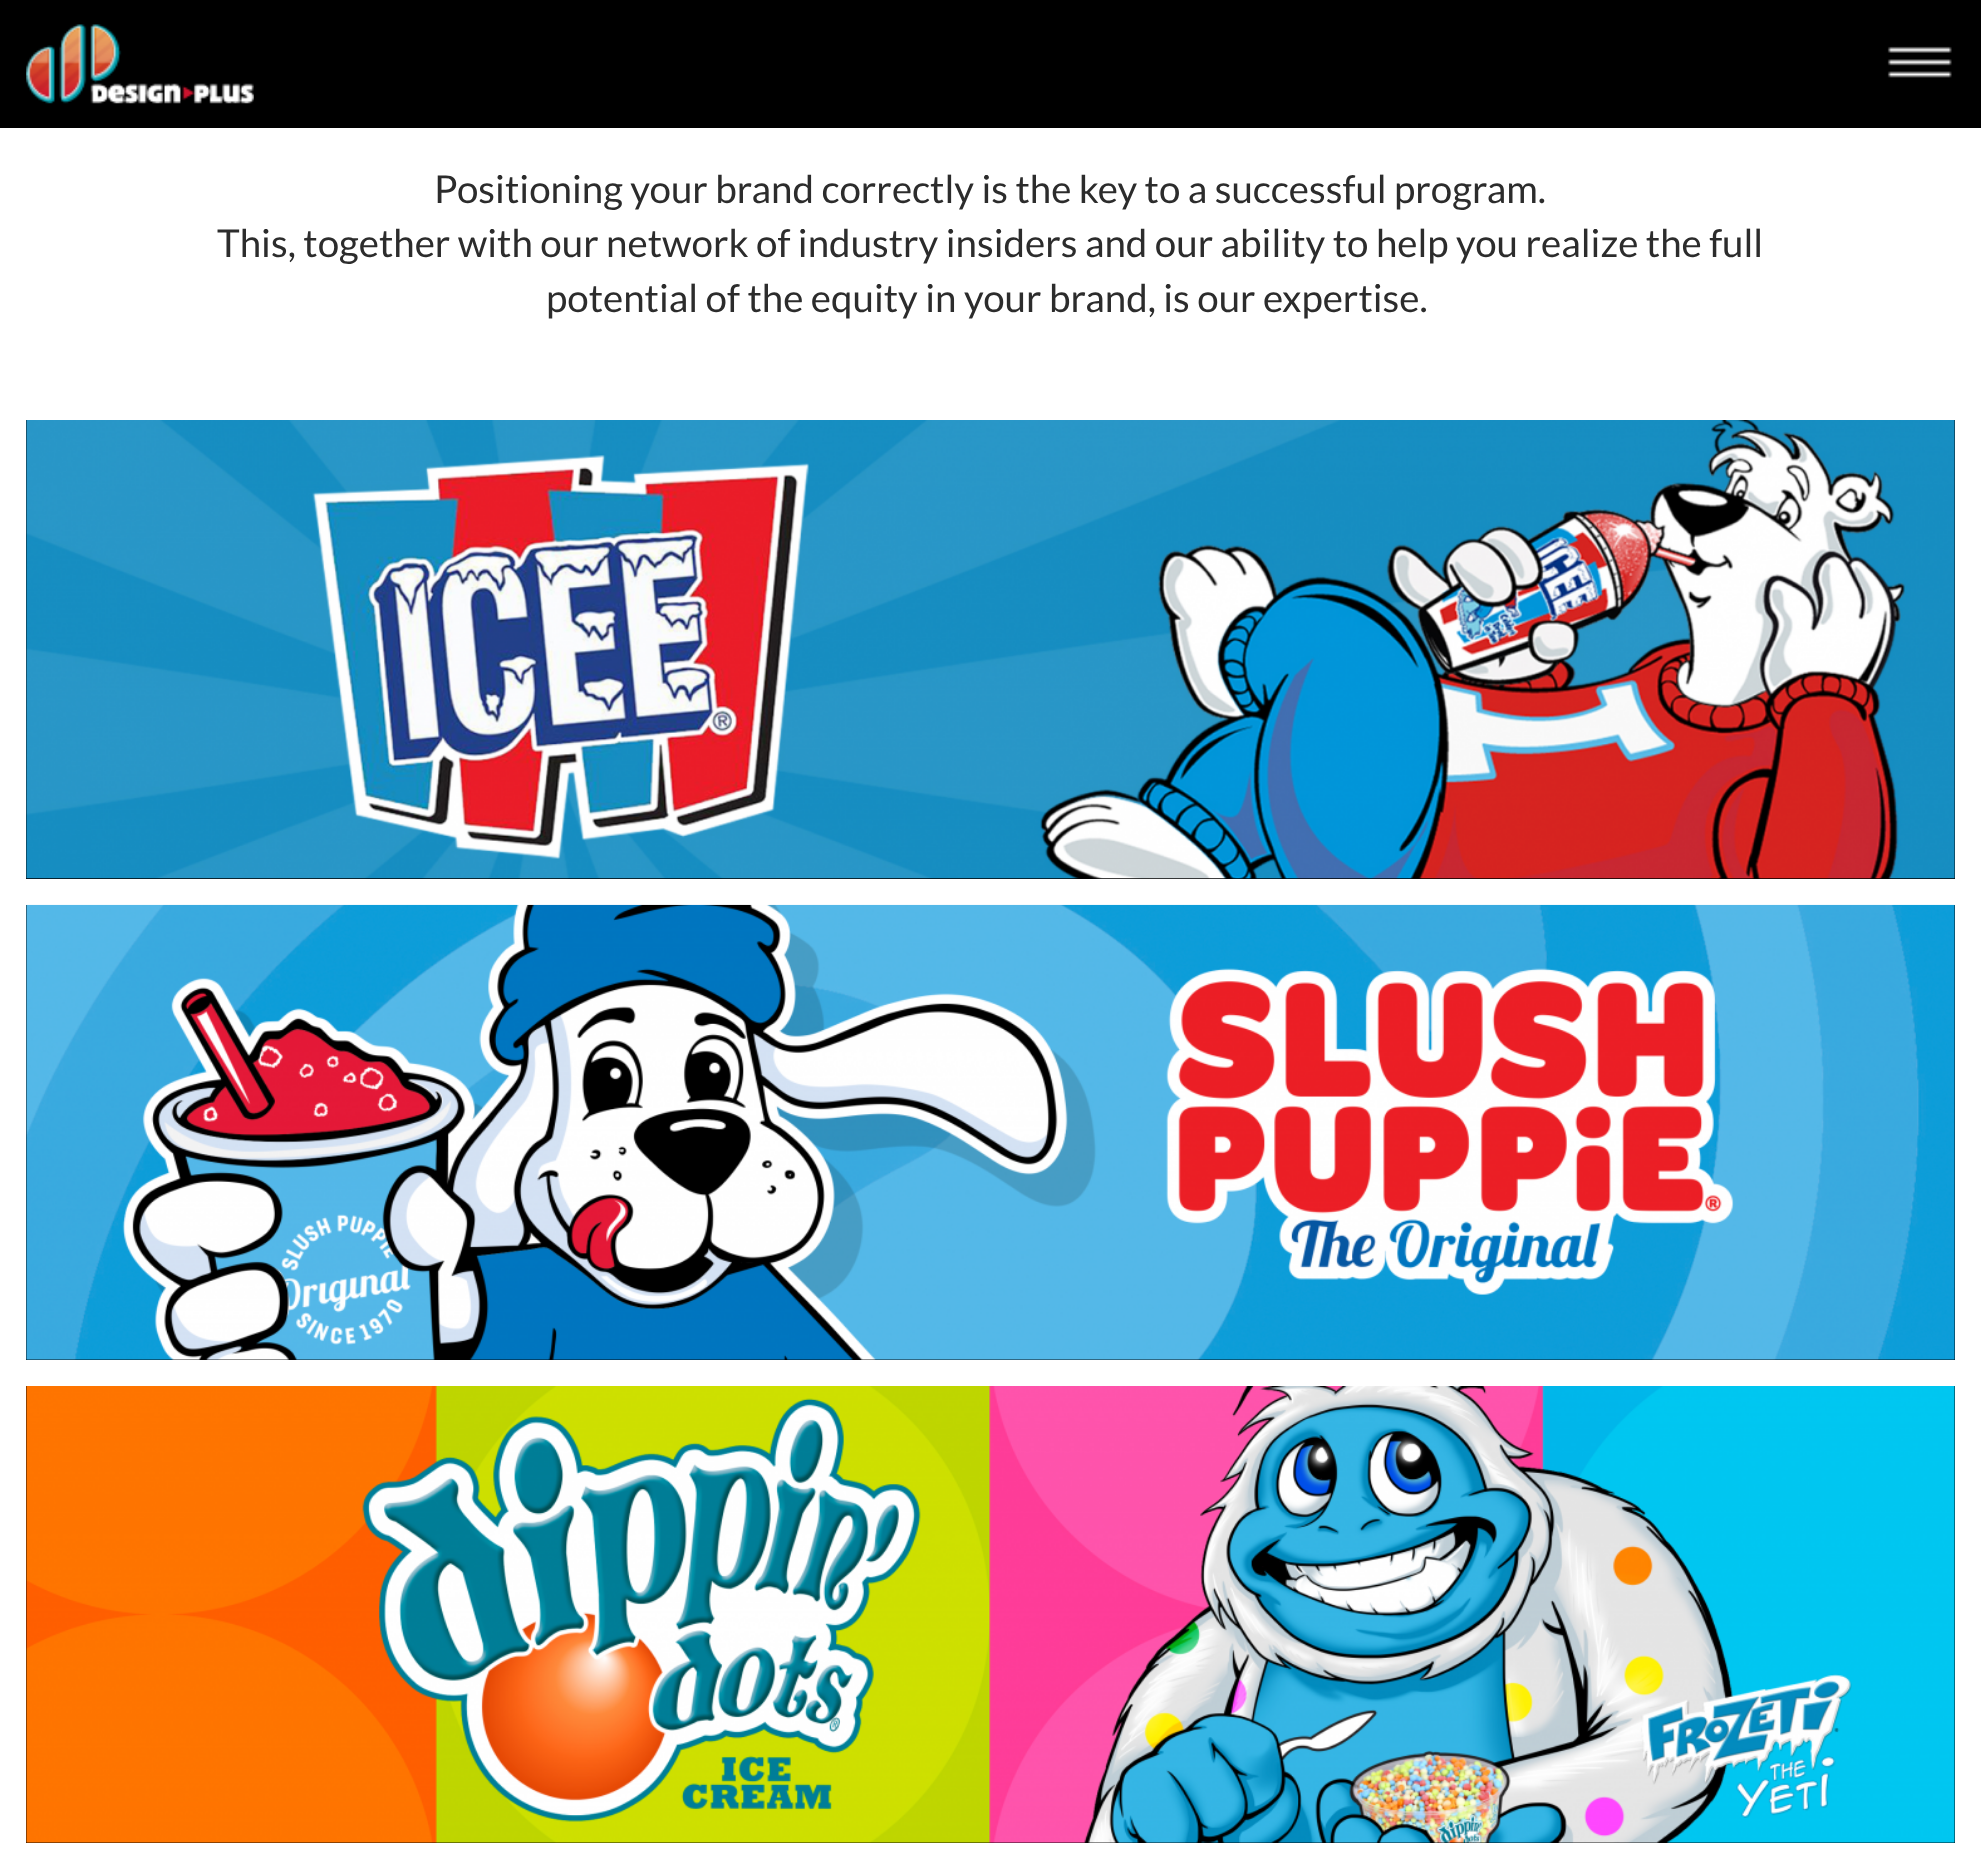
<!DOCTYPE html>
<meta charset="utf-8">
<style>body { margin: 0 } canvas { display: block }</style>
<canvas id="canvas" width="1981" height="1862"></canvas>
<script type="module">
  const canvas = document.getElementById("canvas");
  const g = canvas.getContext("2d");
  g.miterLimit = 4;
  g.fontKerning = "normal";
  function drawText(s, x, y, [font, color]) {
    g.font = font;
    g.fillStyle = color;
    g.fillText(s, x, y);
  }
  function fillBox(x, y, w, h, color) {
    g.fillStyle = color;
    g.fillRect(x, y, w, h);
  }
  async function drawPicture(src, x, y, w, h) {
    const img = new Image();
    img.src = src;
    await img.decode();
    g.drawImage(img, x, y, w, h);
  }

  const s1 = ["38.5px Lato", "#2C2C2C"];

  fillBox(0, 0, 1981, 1862, "#FFFFFF");
  fillBox(0, 0, 1981, 128, "#000000");
  await drawPicture("pic1.png", 26, 24, 228, 80);
  await drawPicture("pic2.png", 1887, 46, 65, 32);
  drawText("Positioning your brand correctly is the key to a successful program.", 434, 203, s1);
  drawText("This, together with our network of industry insiders and our ability to help you realize the full", 217, 257, s1);
  drawText("potential of the equity in your brand, is our expertise.", 546, 312, s1);
  fillBox(26, 420, 1929, 459, "#000000");
  await drawPicture("pic3.png", 26, 420, 1929, 459);
  fillBox(26, 905, 1929, 455, "#000000");
  await drawPicture("pic4.png", 26, 904, 1929, 456);
  fillBox(26, 1386, 1929, 457, "#000000");
  await drawPicture("pic5.png", 26, 1386, 1929, 457);
</script>
